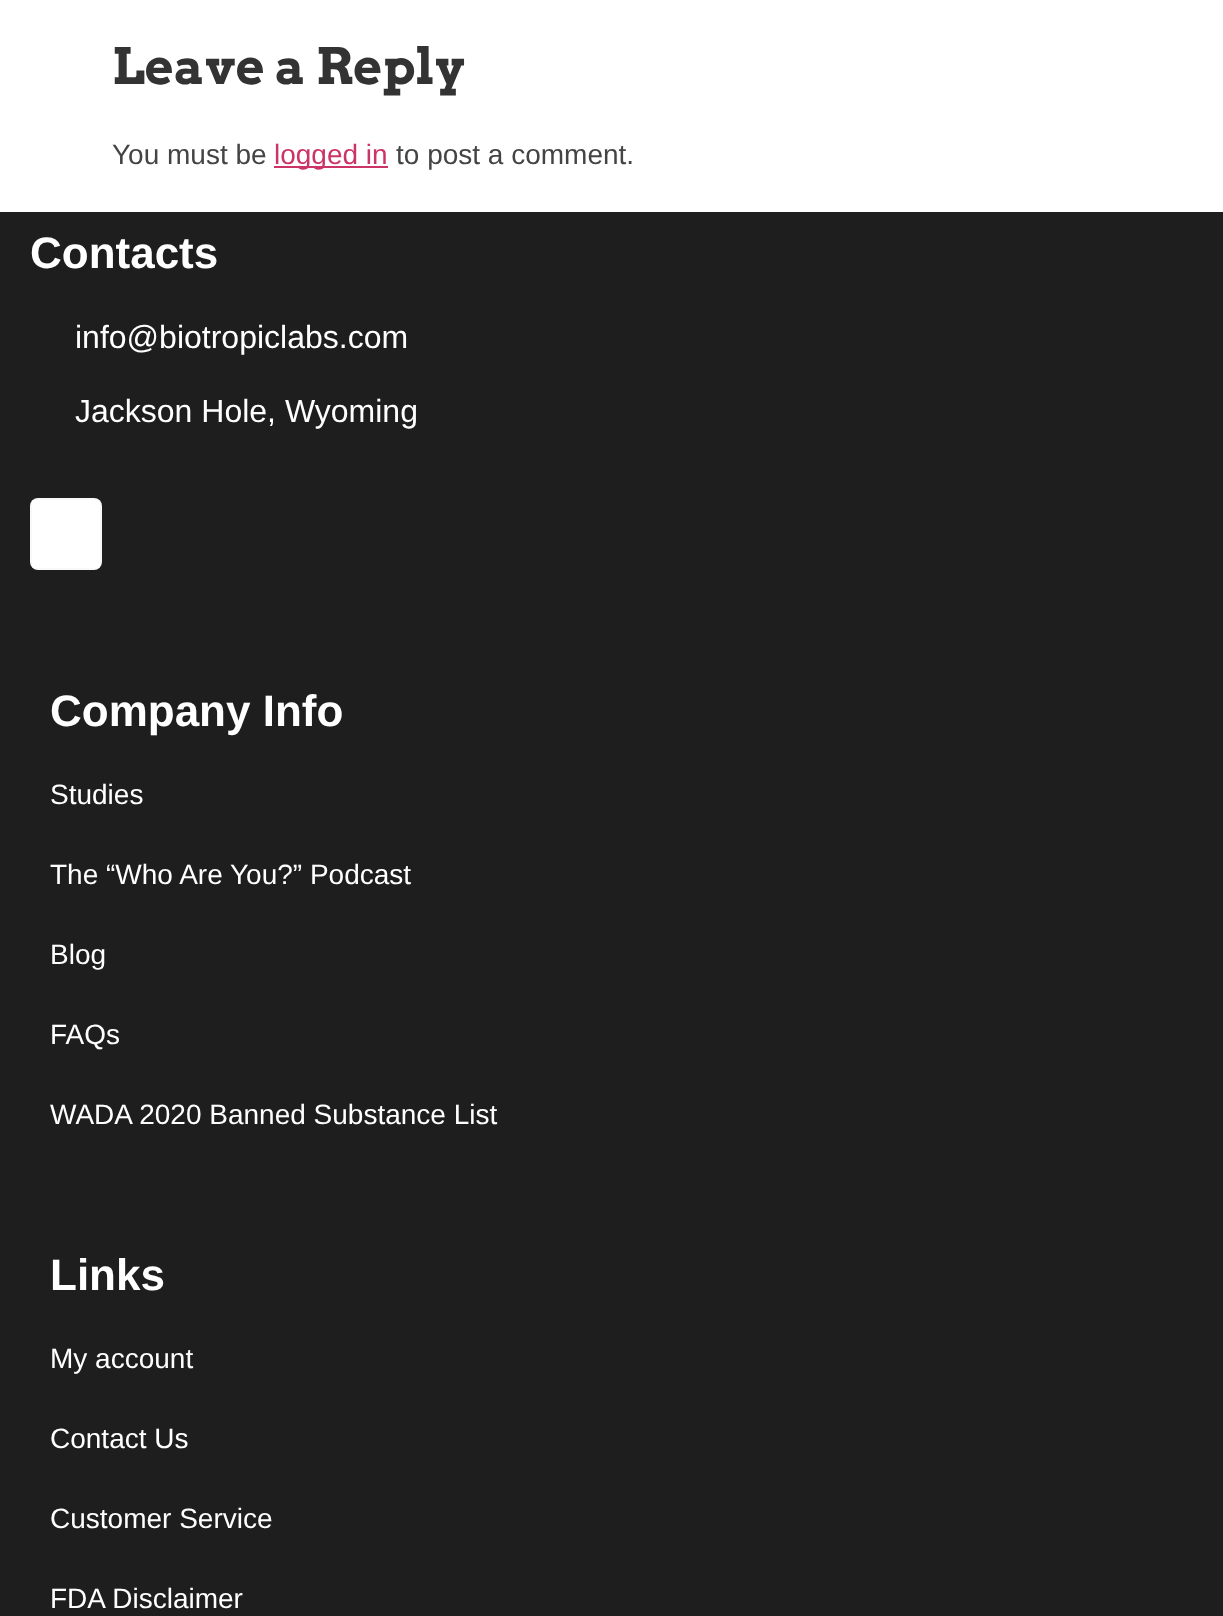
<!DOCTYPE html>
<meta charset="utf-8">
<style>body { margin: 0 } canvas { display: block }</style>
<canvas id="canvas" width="1223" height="1616"></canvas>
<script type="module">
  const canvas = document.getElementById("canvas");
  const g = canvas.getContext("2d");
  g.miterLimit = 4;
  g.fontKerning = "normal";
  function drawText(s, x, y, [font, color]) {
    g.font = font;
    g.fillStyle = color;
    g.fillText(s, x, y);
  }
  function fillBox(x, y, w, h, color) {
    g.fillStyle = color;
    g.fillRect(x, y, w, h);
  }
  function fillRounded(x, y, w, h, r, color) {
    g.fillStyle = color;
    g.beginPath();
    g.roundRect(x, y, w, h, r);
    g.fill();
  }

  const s1 = ["bold 50px Arvo", "#333333"];
  const s2 = ["28px Liberation Sans", "#444444"];
  const s3 = ["28px Liberation Sans", "#CC3366"];
  const s4 = ["bold 44px Liberation Sans", "#FFFFFF"];
  const s5 = ["32px Liberation Sans", "#FFFFFF"];
  const s6 = ["28px Liberation Sans", "#FFFFFF"];

  fillBox(0, 0, 1223, 1616, "#FFFFFF");
  drawText("Leave a Reply", 112, 84, s1);
  drawText("You must be", 112, 164, s2);
  fillBox(274, 166, 114, 2, "#CC3366");
  drawText("logged in", 274, 164, s3);
  drawText("to post a comment.", 396, 164, s2);
  fillBox(0, 212, 1223, 1404, "#1E1E1E");
  drawText("Contacts", 30, 268, s4);
  drawText("info@biotropiclabs.com", 75, 348, s5);
  drawText("Jackson Hole, Wyoming", 75, 422, s5);
  fillRounded(30, 498, 72, 72, 8, "#FFFFFF");
  g.strokeStyle = "rgba(23, 15, 73, 0.03)";
  g.lineWidth = 2;
  g.strokeRect(31, 499, 70, 70);
  drawText("Company Info", 50, 726, s4);
  drawText("Studies", 50, 804, s6);
  drawText("The “Who Are You?” Podcast", 50, 884, s6);
  drawText("Blog", 50, 964, s6);
  drawText("FAQs", 50, 1044, s6);
  drawText("WADA 2020 Banned Substance List", 50, 1124, s6);
  drawText("Links", 50, 1290, s4);
  drawText("My account", 50, 1368, s6);
  drawText("Contact Us", 50, 1448, s6);
  drawText("Customer Service", 50, 1528, s6);
  drawText("FDA Disclaimer", 50, 1608, s6);
</script>
